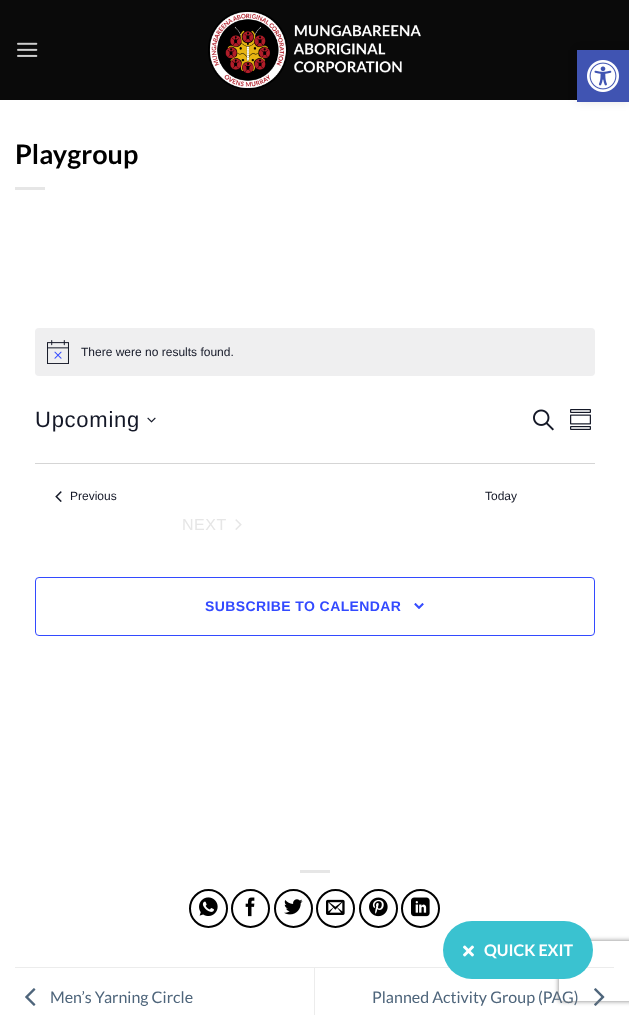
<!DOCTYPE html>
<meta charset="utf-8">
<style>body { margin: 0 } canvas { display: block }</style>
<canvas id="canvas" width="629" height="1015"></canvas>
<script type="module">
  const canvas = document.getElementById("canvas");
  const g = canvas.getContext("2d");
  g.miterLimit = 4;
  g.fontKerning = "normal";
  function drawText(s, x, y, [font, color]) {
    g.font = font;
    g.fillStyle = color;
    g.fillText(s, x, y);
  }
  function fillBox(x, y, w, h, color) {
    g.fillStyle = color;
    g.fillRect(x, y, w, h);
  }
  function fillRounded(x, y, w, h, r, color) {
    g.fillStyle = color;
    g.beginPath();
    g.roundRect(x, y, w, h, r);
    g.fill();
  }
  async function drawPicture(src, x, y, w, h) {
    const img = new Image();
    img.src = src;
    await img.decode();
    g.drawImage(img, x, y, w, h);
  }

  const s1 = ["bold 27px Lato", "#000000"];
  const s2 = ["12px Liberation Sans", "#141827"];
  const s3 = ["22px Liberation Sans", "#141827"];
  const s4 = ["16px Liberation Sans", "#E6E6E6"];
  const s5 = ["bold 14px Liberation Sans", "#334AFF"];
  const s6 = ["16px Lato", "#4E657B"];
  const s7 = ["bold 16px Lato", "#FFFFFF"];

  fillBox(0, 0, 629, 1015, "#FFFFFF");
  fillBox(0, 0, 629, 100, "#0A0A0A");
  g.fillStyle = "rgba(0, 0, 0, 0.1)";
  g.filter = "blur(5px)";
  g.beginPath();
  g.rect(577, 50, 52, 52);
  g.fill();
  g.filter = "none";
  fillBox(577, 50, 52, 52, "#4054B2");
  await drawPicture("pic1.png", 587, 60, 32, 32);
  await drawPicture("pic2.png", 17, 42, 21, 15);
  await drawPicture("pic3.png", 208, 10, 213, 80);
  drawText("Playgroup", 15, 164, s1);
  fillBox(15, 187, 30, 3, "#E6E6E6");
  fillRounded(35, 328, 560, 48, 4, "#EFEFF0");
  await drawPicture("pic4.png", 47, 340, 22, 24);
  drawText("There were no results found.", 81, 356, s2);
  g.letterSpacing = "0.75px";
  drawText("Upcoming", 35, 427, s3);
  await drawPicture("pic5.png", 147, 417, 9, 6);
  await drawPicture("pic6.png", 533, 409, 21, 22);
  await drawPicture("pic7.png", 570, 409, 21, 21);
  fillBox(35, 463, 560, 1, "#D5D5D5");
  await drawPicture("pic8.png", 55, 491, 7, 11);
  g.letterSpacing = "0px";
  drawText("Previous", 70, 500, s2);
  drawText("Today", 485, 500, s2);
  g.letterSpacing = "0.5px";
  drawText("NEXT", 182, 530, s4);
  await drawPicture("pic9.png", 235, 519, 7, 11);
  g.beginPath();
  g.roundRect(35.5, 577.5, 559, 58, 3.5);
  g.strokeStyle = "#334AFF";
  g.stroke();
  g.letterSpacing = "0.4px";
  drawText("SUBSCRIBE TO CALENDAR", 205, 611, s5);
  await drawPicture("pic10.png", 414, 603, 10, 6);
  fillBox(300, 870, 30, 3, "#E6E6E6");
  g.beginPath();
  g.arc(208.5, 908.5, 18.5, 0, Math.PI * 2);
  g.strokeStyle = "#000000";
  g.lineWidth = 2;
  g.stroke();
  await drawPicture("pic11.png", 199, 897, 19, 19);
  g.beginPath();
  g.arc(250.5, 908.5, 18.5, 0, Math.PI * 2);
  g.stroke();
  await drawPicture("pic12.png", 245, 897, 10, 20);
  g.beginPath();
  g.arc(293.5, 908.5, 18.5, 0, Math.PI * 2);
  g.stroke();
  await drawPicture("pic13.png", 284, 899, 19, 16);
  g.beginPath();
  g.arc(335.5, 908.5, 18.5, 0, Math.PI * 2);
  g.stroke();
  await drawPicture("pic14.png", 326, 899, 19, 16);
  g.beginPath();
  g.arc(378.5, 908.5, 18.5, 0, Math.PI * 2);
  g.stroke();
  await drawPicture("pic15.png", 369, 897, 19, 20);
  g.beginPath();
  g.arc(420.5, 908.5, 18.5, 0, Math.PI * 2);
  g.stroke();
  await drawPicture("pic16.png", 411, 897, 19, 20);
  fillBox(15, 967, 599, 1, "#ECECEC");
  await drawPicture("pic17.png", 25, 988, 11, 18);
  g.letterSpacing = "0px";
  drawText("Men’s Yarning Circle", 50, 1003, s6);
  fillBox(314, 968, 1, 47, "#ECECEC");
  drawText("Planned Activity Group (PAG)", 372, 1003, s6);
  await drawPicture("pic18.png", 594, 988, 11, 18);
  g.save();
  g.beginPath();
  g.moveTo(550, 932);
  g.lineTo(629, 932);
  g.lineTo(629, 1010);
  g.lineTo(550, 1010);
  g.closePath();
  g.moveTo(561, 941);
  g.lineTo(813, 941);
  g.bezierCurveTo(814, 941, 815, 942, 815, 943);
  g.lineTo(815, 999);
  g.bezierCurveTo(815, 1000, 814, 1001, 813, 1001);
  g.lineTo(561, 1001);
  g.bezierCurveTo(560, 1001, 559, 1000, 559, 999);
  g.lineTo(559, 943);
  g.bezierCurveTo(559, 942, 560, 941, 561, 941);
  g.closePath();
  g.clip("evenodd");
  g.fillStyle = "#808080";
  g.filter = "blur(2.5px)";
  g.beginPath();
  g.roundRect(559, 941, 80, 60, 2);
  g.fill();
  g.filter = "none";
  g.restore();
  fillRounded(443, 921, 150, 58, 29, "#3AC2D0");
  await drawPicture("pic19.png", 463, 945, 11, 12);
  drawText("QUICK EXIT", 484, 956, s7);
</script>
